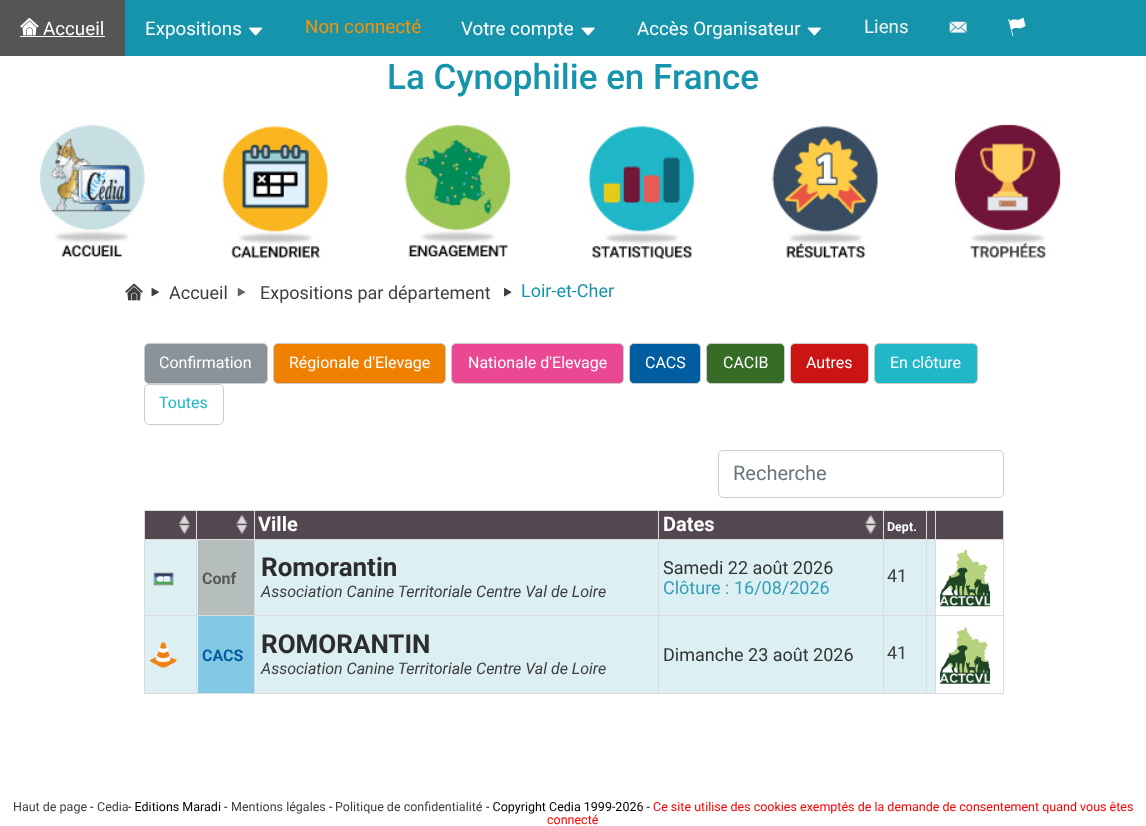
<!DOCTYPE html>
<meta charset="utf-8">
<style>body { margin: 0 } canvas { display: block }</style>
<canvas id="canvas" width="1146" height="826"></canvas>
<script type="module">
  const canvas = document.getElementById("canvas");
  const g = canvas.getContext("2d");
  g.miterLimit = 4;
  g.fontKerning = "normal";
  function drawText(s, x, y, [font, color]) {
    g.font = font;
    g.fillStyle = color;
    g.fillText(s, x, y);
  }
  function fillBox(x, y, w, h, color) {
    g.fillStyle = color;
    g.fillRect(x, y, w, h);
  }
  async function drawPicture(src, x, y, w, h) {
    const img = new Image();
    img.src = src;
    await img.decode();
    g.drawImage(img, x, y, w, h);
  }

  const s1 = ["18.75px Roboto", "#FFFFFF"];
  const s2 = ["18.75px Roboto", "#FC9005"];
  const s3 = ["18.75px Roboto", "#F2F2F2"];
  const s4 = ["500 35px Roboto", "#1694AB"];
  const s5 = ["18px Roboto", "#3E3D40"];
  const s6 = ["18px Roboto", "#1694AB"];
  const s7 = ["16px Roboto", "#FFFFFF"];
  const s8 = ["16px Roboto", "#20B7C8"];
  const s9 = ["20px Roboto", "#6C757D"];
  const s10 = ["bold 20px Roboto", "#FFFFFF"];
  const s11 = ["bold 12.5px Roboto", "#FFFFFF"];
  const s12 = ["bold 16px Roboto", "#58595B"];
  const s13 = ["bold 26px Roboto", "#2D2D2D"];
  const s14 = ["italic 16px Roboto", "#3E3D40"];
  const s15 = ["18px Roboto", "#333333"];
  const s16 = ["18px Roboto", "#359EB8"];
  const s17 = ["bold 16px Roboto", "#005EA0"];
  const s18 = ["12.5px Roboto", "#3E3D40"];
  const s19 = ["12.5px Roboto", "#000000"];
  const s20 = ["12.5px Roboto", "#FF0000"];

  fillBox(0, 0, 1146, 826, "#FFFFFF");
  fillBox(125, 0, 1021, 56, "#1694AB");
  fillBox(0, 0, 125, 56, "#555555");
  await drawPicture("pic1.png", 20, 18, 19, 18);
  drawText("Accueil", 43, 35, s1);
  fillBox(20, 36, 85, 1, "#FFFFFF");
  drawText("Expositions", 145, 35, s1);
  await drawPicture("pic2.png", 248, 27, 15, 9);
  drawText("Non connecté", 305, 33, s2);
  drawText("Votre compte", 461, 35, s1);
  await drawPicture("pic3.png", 581, 27, 14, 9);
  drawText("Accès Organisateur", 637, 35, s1);
  await drawPicture("pic4.png", 807, 27, 15, 9);
  drawText("Liens", 864, 33, s3);
  await drawPicture("pic5.png", 949, 21, 18, 12);
  await drawPicture("pic6.png", 1008, 17, 18, 20);
  drawText("La Cynophilie en France", 387, 89, s4);
  await drawPicture("pic7.png", 39, 125, 106, 132);
  await drawPicture("pic8.png", 222, 126, 106, 132);
  await drawPicture("pic9.png", 405, 124, 106, 133);
  await drawPicture("pic10.png", 588, 126, 106, 133);
  await drawPicture("pic11.png", 772, 126, 106, 132);
  await drawPicture("pic12.png", 955, 124, 106, 134);
  await drawPicture("pic13.png", 125, 283, 18, 18);
  await drawPicture("pic14.png", 151, 288, 8, 9);
  drawText("Accueil", 169, 299, s5);
  await drawPicture("pic15.png", 237, 288, 9, 9);
  drawText("Expositions par département", 260, 299, s5);
  await drawPicture("pic16.png", 504, 287, 8, 10);
  drawText("Loir-et-Cher", 521, 297, s6);
  g.fillStyle = "#8A939A";
  g.beginPath();
  g.roundRect(144.5, 343.5, 123, 40, 4.5);
  g.fill();
  g.strokeStyle = "#CCCCCC";
  g.stroke();
  drawText("Confirmation", 159, 368, s7);
  g.fillStyle = "#F08100";
  g.beginPath();
  g.roundRect(273.5, 343.5, 172, 40, 4.5);
  g.fill();
  g.stroke();
  drawText("Régionale d'Elevage", 289, 368, s7);
  g.fillStyle = "#EA4893";
  g.beginPath();
  g.roundRect(451.5, 343.5, 172, 40, 4.5);
  g.fill();
  g.stroke();
  drawText("Nationale d'Elevage", 468, 368, s7);
  g.fillStyle = "#005EA0";
  g.beginPath();
  g.roundRect(629.5, 343.5, 71, 40, 4.5);
  g.fill();
  g.stroke();
  drawText("CACS", 645, 368, s7);
  g.fillStyle = "#366D26";
  g.beginPath();
  g.roundRect(706.5, 343.5, 78, 40, 4.5);
  g.fill();
  g.stroke();
  drawText("CACIB", 723, 368, s7);
  g.fillStyle = "#CB1515";
  g.beginPath();
  g.roundRect(790.5, 343.5, 78, 40, 4.5);
  g.fill();
  g.stroke();
  drawText("Autres", 806, 368, s7);
  g.fillStyle = "#20B7C8";
  g.beginPath();
  g.roundRect(874.5, 343.5, 103, 40, 4.5);
  g.fill();
  g.stroke();
  drawText("En clôture", 890, 368, s7);
  g.beginPath();
  g.roundRect(144.5, 384.5, 79, 40, 4.5);
  g.stroke();
  drawText("Toutes", 159, 408, s8);
  g.beginPath();
  g.roundRect(718.5, 450.5, 285, 47, 4.5);
  g.stroke();
  drawText("Recherche", 733, 480, s9);
  fillBox(145, 511, 109, 28, "#534850");
  fillBox(935, 510, 69, 1, "#DBDBDB");
  fillBox(935, 539, 69, 1, "#DBDBDB");
  fillBox(935, 615, 69, 1, "#DBDBDB");
  fillBox(1003, 615, 1, 79, "#DBDBDB");
  fillBox(935, 693, 69, 1, "#DBDBDB");
  fillBox(935, 615, 1, 79, "#DBDBDB");
  fillBox(926, 615, 10, 1, "#DBDBDB");
  fillBox(935, 539, 1, 77, "#DBDBDB");
  fillBox(926, 539, 10, 1, "#DBDBDB");
  fillBox(935, 510, 1, 30, "#DBDBDB");
  fillBox(926, 510, 10, 1, "#DBDBDB");
  fillBox(145, 540, 790, 75, "#DCEFF2");
  fillBox(145, 616, 790, 77, "#DCEFF2");
  fillBox(926, 693, 10, 1, "#DBDBDB");
  fillBox(926, 615, 1, 79, "#DBDBDB");
  fillBox(883, 615, 45, 1, "#DBDBDB");
  fillBox(926, 539, 1, 77, "#DBDBDB");
  fillBox(883, 539, 45, 1, "#DBDBDB");
  fillBox(926, 510, 1, 30, "#DBDBDB");
  fillBox(883, 510, 45, 1, "#DBDBDB");
  fillBox(883, 693, 45, 1, "#DBDBDB");
  fillBox(883, 615, 1, 79, "#DBDBDB");
  fillBox(658, 615, 226, 1, "#DBDBDB");
  fillBox(883, 539, 1, 77, "#DBDBDB");
  fillBox(658, 539, 226, 1, "#DBDBDB");
  fillBox(883, 510, 1, 30, "#DBDBDB");
  fillBox(658, 510, 226, 1, "#DBDBDB");
  fillBox(658, 693, 226, 1, "#DBDBDB");
  fillBox(658, 615, 1, 79, "#DBDBDB");
  fillBox(254, 615, 405, 1, "#DBDBDB");
  fillBox(658, 539, 1, 77, "#DBDBDB");
  fillBox(254, 539, 405, 1, "#DBDBDB");
  fillBox(658, 510, 1, 30, "#DBDBDB");
  fillBox(254, 510, 405, 1, "#DBDBDB");
  fillBox(254, 693, 405, 1, "#DBDBDB");
  fillBox(254, 615, 1, 79, "#DBDBDB");
  fillBox(196, 615, 59, 1, "#DBDBDB");
  fillBox(254, 539, 1, 77, "#DBDBDB");
  fillBox(196, 539, 59, 1, "#DBDBDB");
  fillBox(254, 510, 1, 30, "#DBDBDB");
  fillBox(196, 510, 59, 1, "#DBDBDB");
  fillBox(196, 693, 59, 1, "#DBDBDB");
  fillBox(196, 615, 1, 79, "#DBDBDB");
  fillBox(144, 615, 54, 1, "#DBDBDB");
  fillBox(196, 539, 1, 77, "#DBDBDB");
  fillBox(144, 539, 54, 1, "#DBDBDB");
  fillBox(196, 510, 1, 30, "#DBDBDB");
  fillBox(144, 510, 54, 1, "#DBDBDB");
  fillBox(144, 693, 54, 1, "#DBDBDB");
  fillBox(144, 615, 1, 79, "#DBDBDB");
  fillBox(144, 539, 1, 77, "#DBDBDB");
  fillBox(144, 510, 1, 30, "#DBDBDB");
  await drawPicture("pic17.png", 178, 514, 13, 20);
  await drawPicture("pic18.png", 236, 515, 12, 19);
  fillBox(255, 511, 403, 28, "#534850");
  drawText("Ville", 258, 531, s10);
  fillBox(659, 511, 224, 28, "#534850");
  await drawPicture("pic19.png", 865, 514, 12, 20);
  drawText("Dates", 663, 531, s10);
  fillBox(884, 511, 42, 28, "#534850");
  drawText("Dept.", 887, 531, s11);
  fillBox(927, 511, 8, 28, "#534850");
  fillBox(936, 511, 67, 28, "#534850");
  fillBox(1003, 539, 1, 77, "#DBDBDB");
  fillBox(1003, 510, 1, 30, "#DBDBDB");
  await drawPicture("pic20.png", 153, 572, 21, 14);
  fillBox(198, 540, 56, 75, "#B5BDBD");
  drawText("Conf", 202, 584, s12);
  drawText("Romorantin", 261, 576, s13);
  drawText("Association Canine Territoriale Centre Val de Loire", 261, 597, s14);
  drawText("Samedi 22 août 2026", 663, 574, s15);
  drawText("Clôture : 16/08/2026", 663, 594, s16);
  drawText("41", 887, 582, s5);
  await drawPicture("pic21.png", 940, 549, 50, 58);
  await drawPicture("pic22.png", 149, 642, 28, 26);
  fillBox(198, 616, 56, 77, "#83C9E5");
  drawText("CACS", 202, 661, s17);
  drawText("ROMORANTIN", 261, 653, s13);
  drawText("Association Canine Territoriale Centre Val de Loire", 261, 674, s14);
  drawText("Dimanche 23 août 2026", 663, 661, s15);
  drawText("41", 887, 659, s5);
  await drawPicture("pic23.png", 940, 626, 50, 58);
  drawText("Haut de page", 13, 811, s18);
  drawText("-", 90, 811, s19);
  drawText("Cedia", 97, 811, s18);
  drawText("- Editions Maradi -", 128, 811, s19);
  drawText("Mentions légales", 231, 811, s18);
  drawText("-", 329, 811, s19);
  drawText("Politique de confidentialité", 335, 811, s18);
  drawText("- Copyright Cedia 1999-2026 -", 486, 811, s19);
  drawText("Ce site utilise des cookies exemptés de la demande de consentement quand vous êtes", 653, 811, s20);
  drawText("connecté", 547, 824, s20);
</script>
